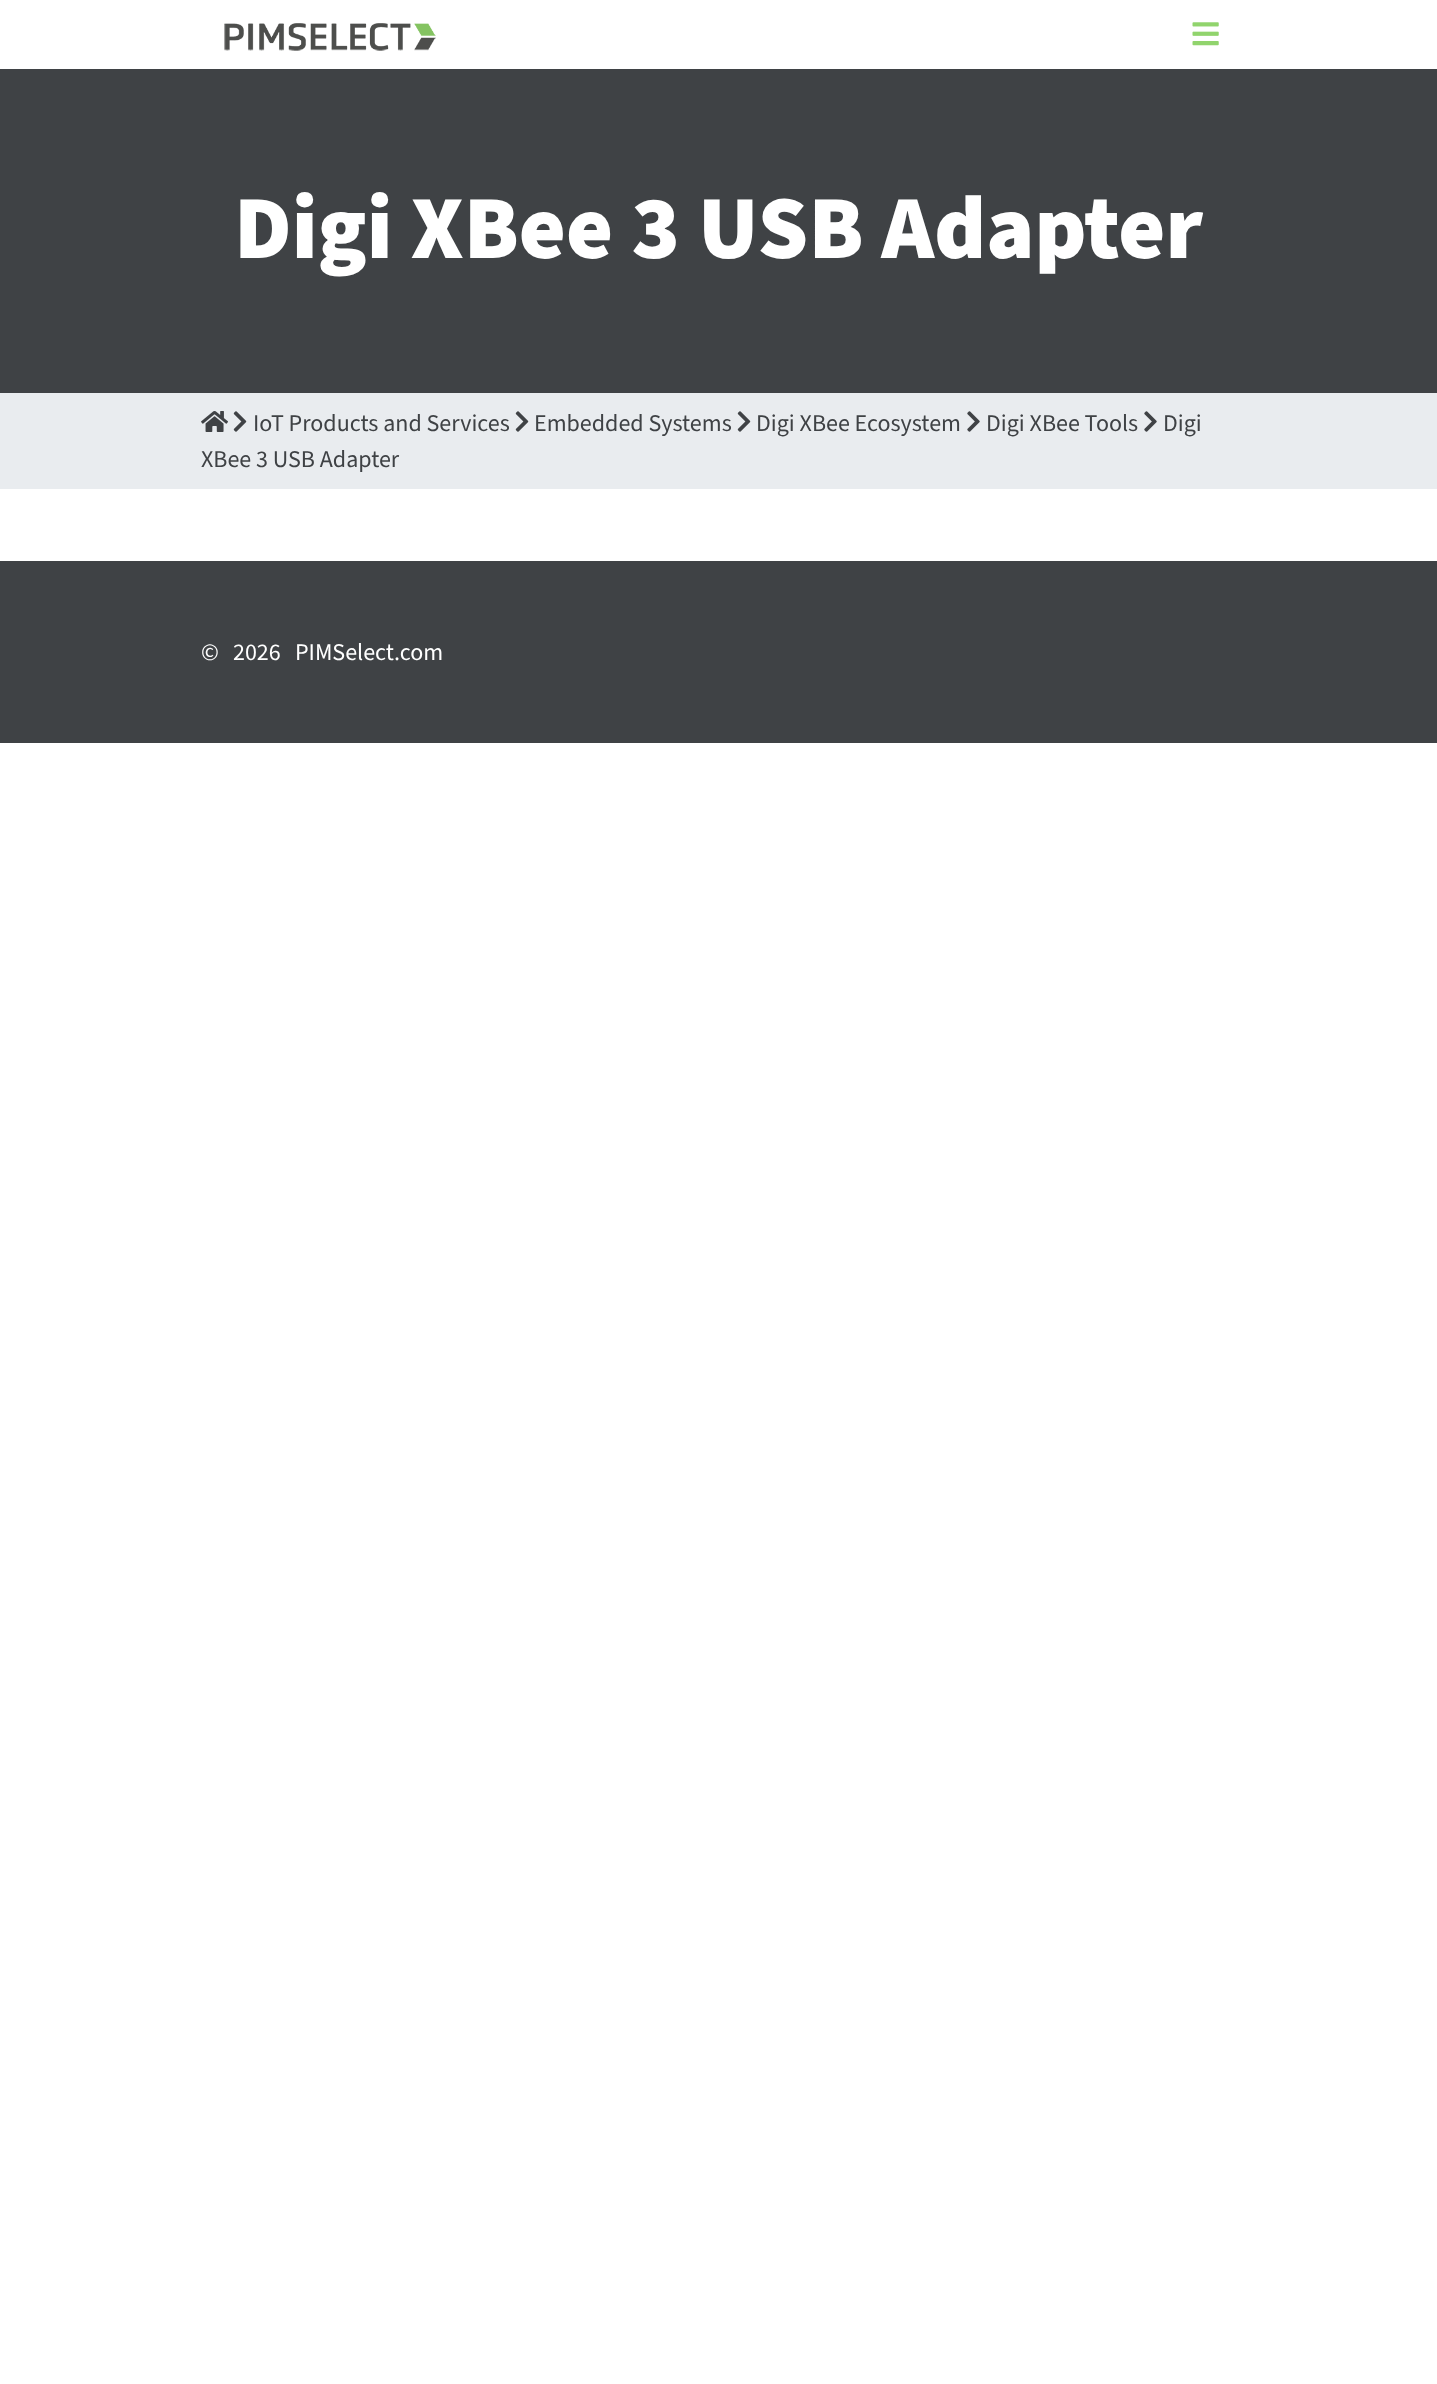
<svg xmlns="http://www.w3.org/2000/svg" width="1437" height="2384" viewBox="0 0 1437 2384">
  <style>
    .t1 { font: 900 90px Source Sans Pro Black; fill: #fff; }
    .t2 { font: 24px Source Sans Pro; fill: #3f4245; }
    .t3 { font: 24px Source Sans Pro; fill: #fff; }
  </style>
  <rect width="100%" height="100%" fill="#fff"/>
  <image x="224" y="23" width="212" height="28" href="images/1.png"/>
  <image x="1192" y="22" width="27" height="24" href="images/2.png"/>
  <rect x="0" y="69" width="1437" height="324" fill="#3f4245"/>
  <text x="234" y="258" class="t1">Digi XBee 3 USB Adapter</text>
  <rect x="0" y="393" width="1437" height="96" fill="#e9ecef"/>
  <image x="201" y="411" width="27" height="21" href="images/3.png"/>
  <image x="233" y="411" width="14" height="21" href="images/4.png"/>
  <text x="253" y="431" class="t2">IoT Products and Services</text>
  <image x="515" y="411" width="14" height="21" href="images/4.png"/>
  <text x="534" y="431" class="t2">Embedded Systems</text>
  <image x="737" y="411" width="14" height="21" href="images/4.png"/>
  <text x="756" y="431" class="t2">Digi XBee Ecosystem</text>
  <image x="967" y="411" width="13" height="21" href="images/5.png"/>
  <text x="986" y="431" class="t2">Digi XBee Tools</text>
  <image x="1144" y="411" width="13" height="21" href="images/5.png"/>
  <text x="1163" y="431" class="t2">Digi</text>
  <text x="201" y="467" class="t2">XBee 3 USB Adapter</text>
  <rect x="0" y="561" width="1437" height="182" fill="#3f4245"/>
  <text x="201" y="660" class="t3">©</text>
  <text x="233" y="660" class="t3">2026</text>
  <text x="295" y="660" class="t3">PIMSelect.com</text>
</svg>
